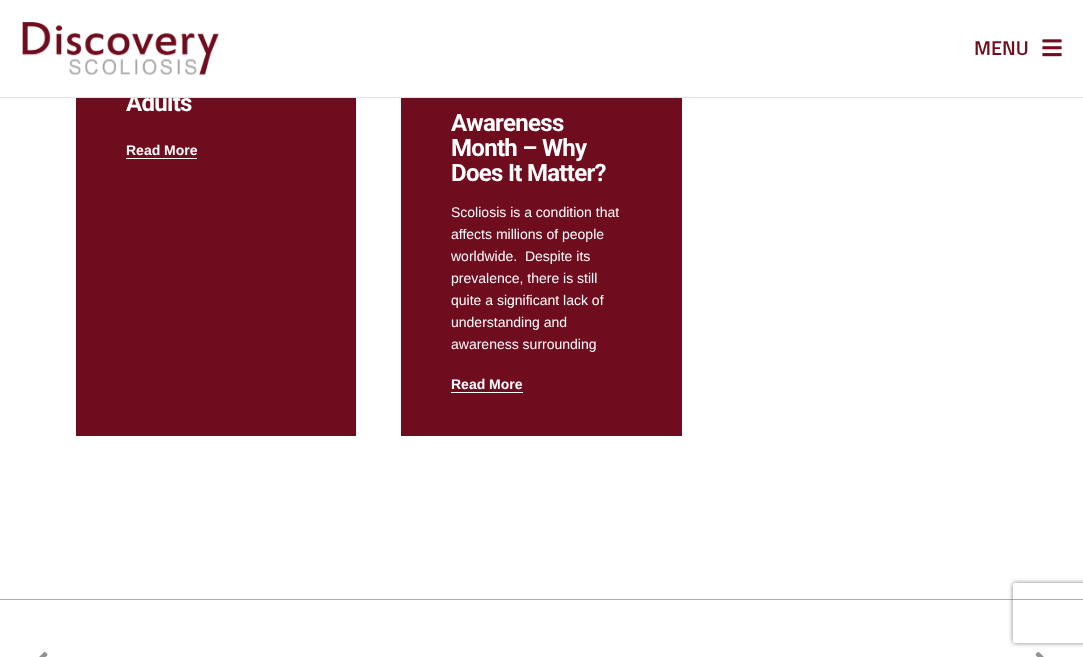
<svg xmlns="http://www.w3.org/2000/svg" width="1083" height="657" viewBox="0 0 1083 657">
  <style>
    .t1 { font: bold 24px Roboto; letter-spacing: -0.7px; fill: #fff; }
    .t2 { font: 600 20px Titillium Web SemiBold; fill: #6f0c1e; }
    .t3 { font: bold 14px Liberation Sans; fill: #fff; }
    .t4 { font: 14px Liberation Sans; fill: #fff; }
  </style>
  <defs>
    <clipPath id="clip1"><path d="M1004 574H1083V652H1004ZM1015 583H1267C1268 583 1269 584 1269 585V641C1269 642 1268 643 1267 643H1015C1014 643 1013 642 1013 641V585C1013 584 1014 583 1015 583Z" clip-rule="evenodd"/></clipPath>
  </defs>
  <rect width="100%" height="100%" fill="#fff"/>
  <rect x="76" y="98" width="280" height="338" fill="#6f0c1e"/>
  <text x="126" y="111" class="t1">Adults</text>
  <rect x="0" y="97" width="1083" height="1" fill="#e2e2e2"/>
  <image x="22" y="22" width="197" height="54" href="images/1.png"/>
  <text x="974" y="55" class="t2">MENU</text>
  <image x="1042" y="39" width="20" height="18" href="images/2.png"/>
  <text x="126" y="155" class="t3">Read More</text>
  <rect x="126" y="158" width="71" height="1" fill="#fff"/>
  <rect x="401" y="98" width="281" height="338" fill="#6f0c1e"/>
  <text x="451" y="131" class="t1">Awareness</text>
  <text x="451" y="156" class="t1">Month – Why</text>
  <text x="451" y="181" class="t1">Does It Matter?</text>
  <text x="451" y="217" class="t4">Scoliosis is a condition that</text>
  <text x="451" y="239" class="t4">affects millions of people</text>
  <text x="451" y="261" class="t4" xml:space="preserve">worldwide.  Despite its</text>
  <text x="451" y="283" class="t4">prevalence, there is still</text>
  <text x="451" y="305" class="t4">quite a significant lack of</text>
  <text x="451" y="327" class="t4">understanding and</text>
  <text x="451" y="349" class="t4">awareness surrounding</text>
  <text x="451" y="389" class="t3">Read More</text>
  <rect x="451" y="392" width="72" height="1" fill="#fff"/>
  <rect x="0" y="599" width="1083" height="1" fill="#aeaeae"/>
  <image x="39" y="652" width="9" height="5" href="images/3.png"/>
  <image x="1035" y="652" width="9" height="5" href="images/4.png"/>
  <g clip-path="url(#clip1)">
    <rect x="1013" y="583" width="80" height="60" rx="2" fill="#808080" filter="blur(2.5px)"/>
  </g>
</svg>
